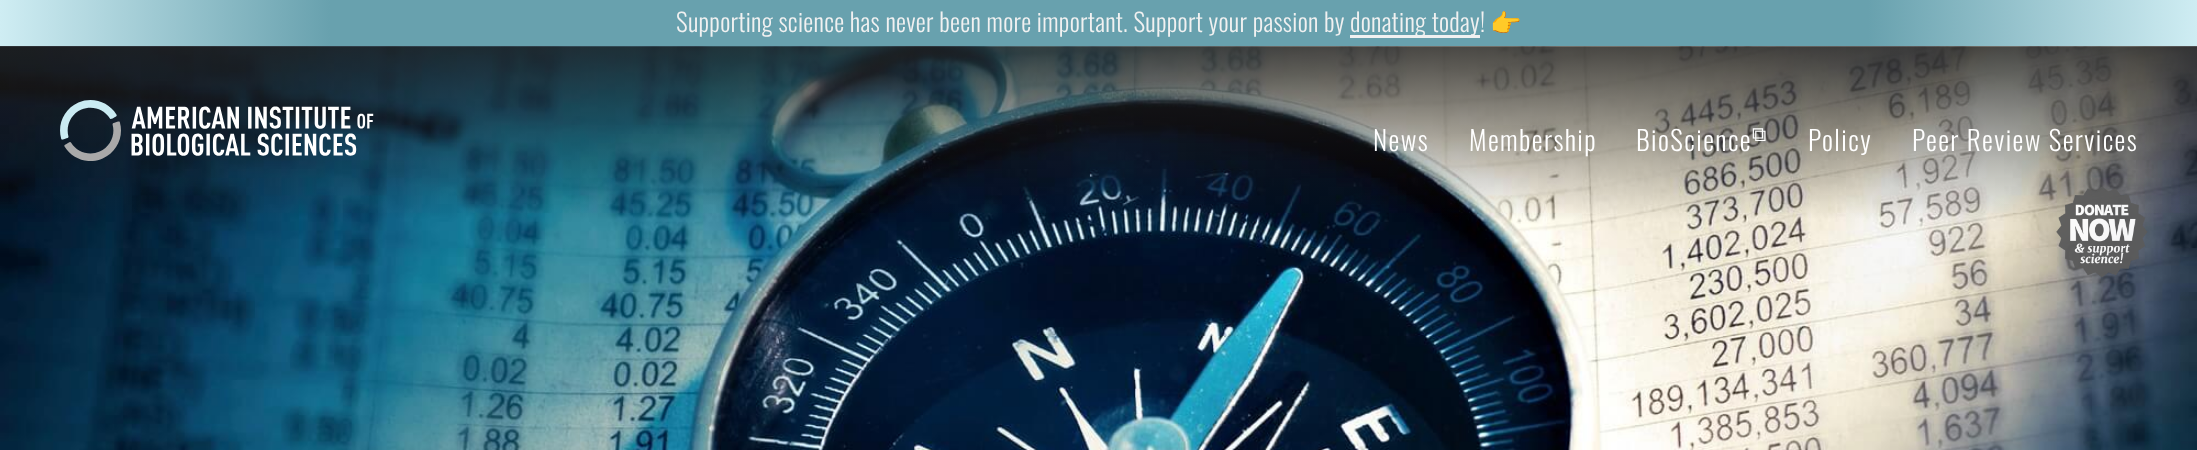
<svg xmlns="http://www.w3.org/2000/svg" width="2197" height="450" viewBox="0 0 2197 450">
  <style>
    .t1 { font: 300 25.2px Oswald; letter-spacing: 0.3px; fill: #f1f1f1; }
    .t2 { font: 25.2px Noto Color Emoji; letter-spacing: 0.3px; fill: #f1f1f1; }
    .t3 { font: 300 27.25px Oswald; letter-spacing: 1.4px; fill: #fff; }
    .t4 { font: 20px FreeSerif; letter-spacing: 1.4px; fill: #fff; }
  </style>
  <defs>
    <radialGradient id="g1" gradientUnits="userSpaceOnUse" cx="1099" cy="23" r="1099"><stop offset="0.7" stop-color="#68a1ae"/><stop offset="1" stop-color="#cfedf3"/></radialGradient>
  </defs>
  <rect width="100%" height="100%" fill="#fff"/>
  <rect x="0" y="0" width="2197" height="46" fill="url(#g1)"/>
  <text x="676" y="32" class="t1">Supporting science has never been more important. Support your passion by</text>
  <rect x="1350" y="35" width="130" height="3" fill="#f1f1f1"/>
  <text x="1350" y="32" class="t1">donating today!</text>
  <text x="1490" y="32" class="t2">👉</text>
  <image x="0" y="46" width="2197" height="404" href="images/1.png"/>
  <image x="60" y="100" width="314" height="61" href="images/2.png"/>
  <text x="1373" y="151" class="t3">News</text>
  <text x="1469" y="151" class="t3">Membership</text>
  <text x="1636" y="151" class="t3">BioScience</text>
  <text x="1752" y="141" class="t4">⧉</text>
  <text x="1808" y="151" class="t3">Policy</text>
  <text x="1912" y="151" class="t3">Peer Review Services</text>
  <image x="2056" y="187" width="92" height="90" href="images/3.png"/>
</svg>
